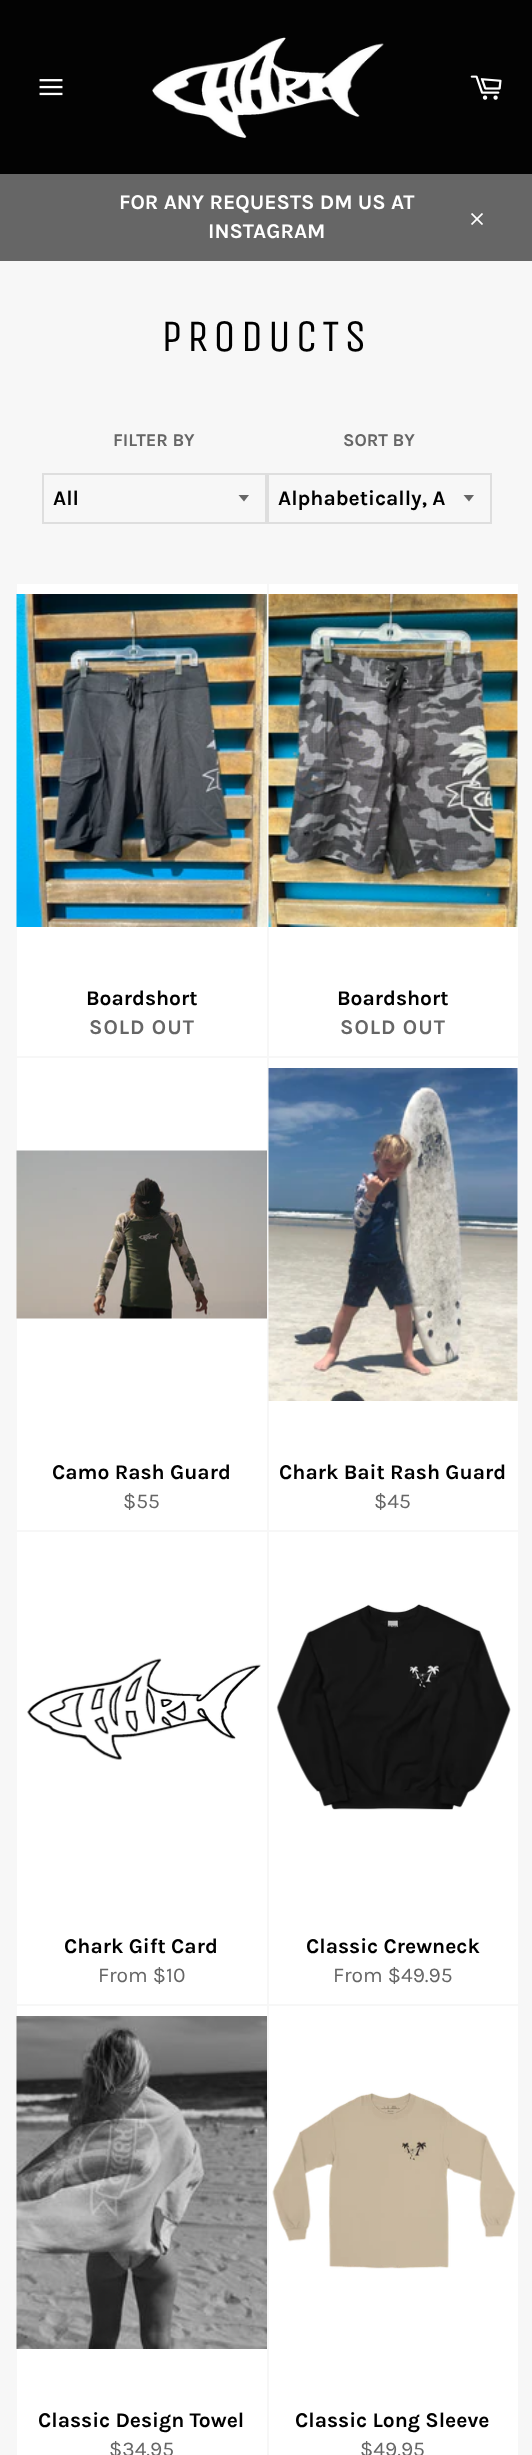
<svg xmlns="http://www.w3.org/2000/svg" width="532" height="2455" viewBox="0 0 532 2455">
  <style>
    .t1 { font: bold 21px Karla; fill: #fff; }
    .t2 { font: 45px Unica One; letter-spacing: 4.5px; fill: #000; }
    .t3 { font: bold 18px Karla; fill: #666; }
    .t4 { font: bold 21px Karla; fill: #000; }
    .t5 { font: bold 21px Karla; letter-spacing: 1px; fill: #666; }
    .t6 { font: 21px Karla; fill: #666; }
  </style>
  <rect width="100%" height="100%" fill="#f7f7f7"/>
  <rect x="0" y="0" width="532" height="174" fill="#030303"/>
  <image x="39" y="79" width="24" height="17" href="images/1.png"/>
  <image x="152" y="37" width="232" height="101" href="images/2.png"/>
  <image x="470" y="75" width="32" height="25" href="images/3.png"/>
  <rect x="0" y="174" width="532" height="87" fill="#666"/>
  <text x="119" y="209" class="t1">FOR ANY REQUESTS DM US AT</text>
  <text x="208" y="238" class="t1">INSTAGRAM</text>
  <image x="471" y="213" width="12" height="12" href="images/4.png"/>
  <text x="161" y="351" class="t2">PRODUCTS</text>
  <text x="113" y="446" class="t3">FILTER BY</text>
  <path d="M238.5 495L244 501.5L249 495Z" fill="#666"/>
  <rect x="43" y="474" width="223" height="49" fill="none" stroke="#dedede" stroke-width="2"/>
  <text x="53" y="505" class="t4">All</text>
  <text x="343" y="446" class="t3">SORT BY</text>
  <path d="M463.5 495L469 501.5L474 495Z" fill="#666"/>
  <rect x="268" y="474" width="223" height="49" fill="none" stroke="#dedede" stroke-width="2"/>
  <text x="278" y="505" class="t4">Alphabetically, A</text>
  <rect x="17" y="584" width="250" height="472" fill="#fff"/>
  <image x="16" y="594" width="251" height="333" href="images/5.png"/>
  <text x="86" y="1005" class="t4">Boardshort</text>
  <text x="89" y="1034" class="t5">SOLD OUT</text>
  <rect x="269" y="584" width="249" height="472" fill="#fff"/>
  <image x="268" y="594" width="250" height="333" href="images/6.png"/>
  <text x="337" y="1005" class="t4">Boardshort</text>
  <text x="340" y="1034" class="t5">SOLD OUT</text>
  <rect x="17" y="1058" width="250" height="472" fill="#fff"/>
  <image x="16" y="1150" width="251" height="169" href="images/7.png"/>
  <text x="52" y="1479" class="t4">Camo Rash Guard</text>
  <text x="123" y="1508" class="t6">$55</text>
  <rect x="269" y="1058" width="249" height="472" fill="#fff"/>
  <image x="268" y="1068" width="250" height="333" href="images/8.png"/>
  <text x="279" y="1479" class="t4">Chark Bait Rash Guard</text>
  <text x="374" y="1508" class="t6">$45</text>
  <rect x="17" y="1532" width="250" height="472" fill="#fff"/>
  <image x="27" y="1658" width="234" height="102" href="images/9.png"/>
  <text x="64" y="1953" class="t4">Chark Gift Card</text>
  <text x="98" y="1982" class="t6">From $10</text>
  <rect x="269" y="1532" width="249" height="472" fill="#fff"/>
  <image x="276" y="1604" width="235" height="206" href="images/10.png"/>
  <text x="306" y="1953" class="t4">Classic Crewneck</text>
  <text x="333" y="1982" class="t6">From $49.95</text>
  <rect x="17" y="2006" width="250" height="449" fill="#fff"/>
  <image x="16" y="2016" width="251" height="333" href="images/11.png"/>
  <text x="38" y="2427" class="t4">Classic Design Towel</text>
  <text x="109" y="2456" class="t6">$34.95</text>
  <rect x="269" y="2006" width="249" height="449" fill="#fff"/>
  <image x="272" y="2092" width="244" height="177" href="images/12.png"/>
  <text x="295" y="2427" class="t4">Classic Long Sleeve</text>
  <text x="360" y="2456" class="t6">$49.95</text>
</svg>
